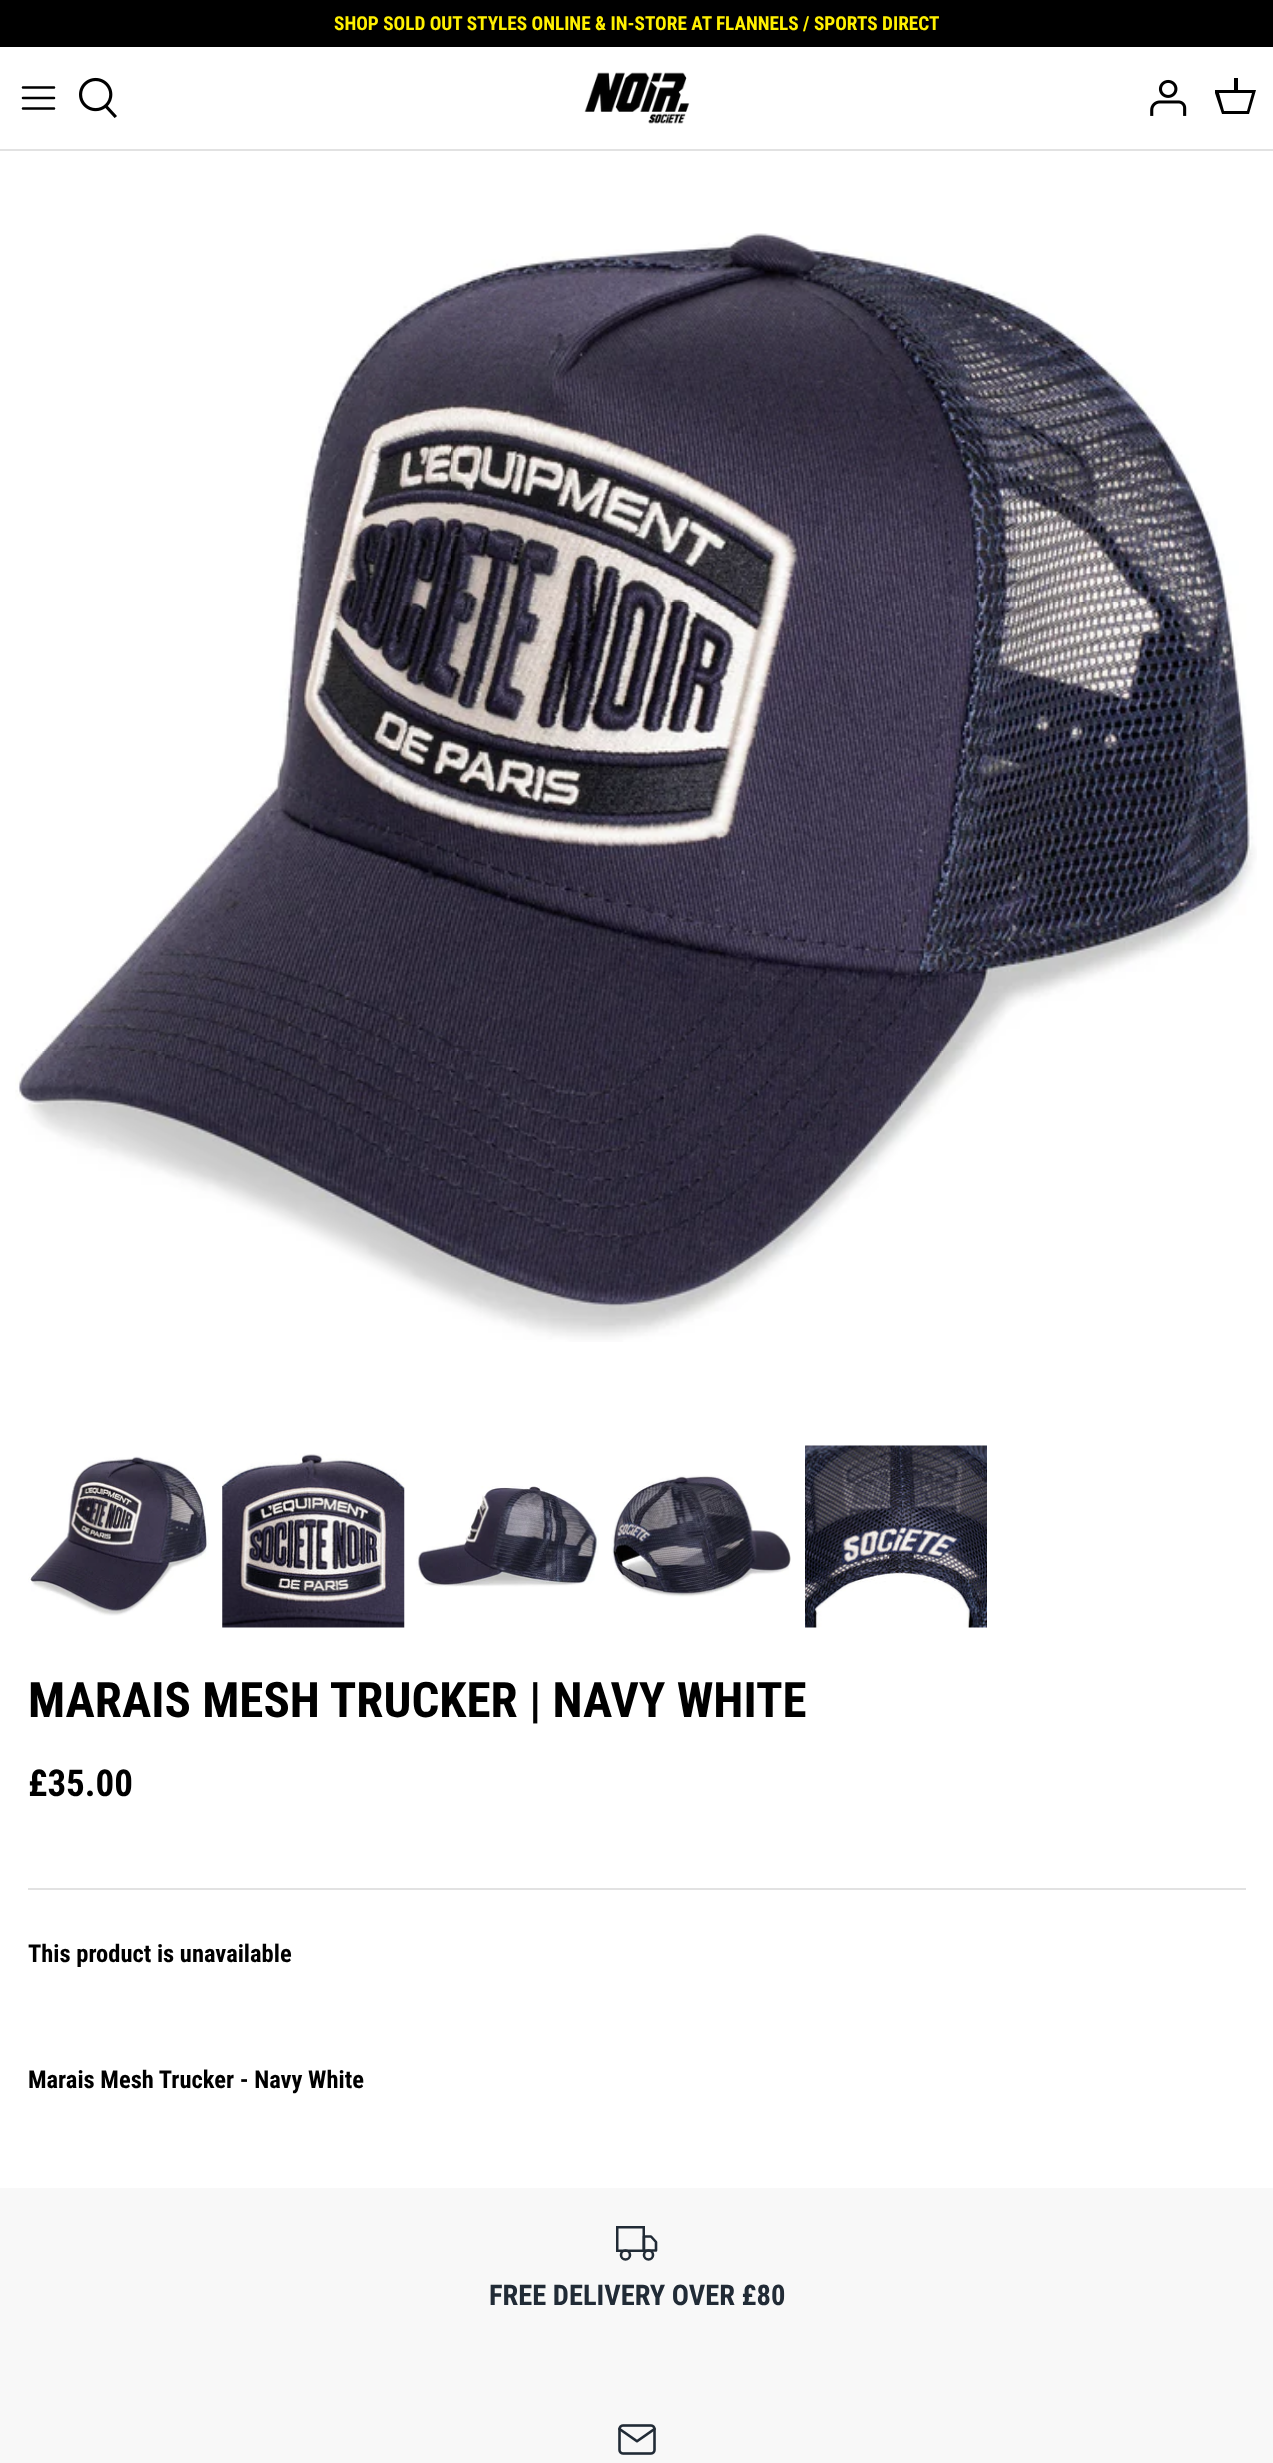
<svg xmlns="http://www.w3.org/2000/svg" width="1273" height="2463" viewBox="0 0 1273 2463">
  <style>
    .t1 { font: bold 19.25px Roboto Condensed; fill: #fff000; }
    .t2 { font: bold 49px Roboto Condensed; fill: #000; }
    .t3 { font: bold 37px Roboto Condensed; fill: #000; }
    .t4 { font: bold 24.5px Roboto Condensed; fill: #000; }
    .t5 { font: bold 28.5px Roboto Condensed; fill: #212b36; }
  </style>
  <defs>
    <clipPath id="clip1"><rect x="1215" y="75" width="42" height="42"/></clipPath>
  </defs>
  <rect width="100%" height="100%" fill="#fff"/>
  <rect x="0" y="0" width="1273" height="47" fill="#000"/>
  <text x="334" y="30" class="t1">SHOP SOLD OUT STYLES ONLINE &amp; IN-STORE AT FLANNELS / SPORTS DIRECT</text>
  <rect x="0" y="149" width="1273" height="2" fill="#e2e2e2"/>
  <path d="M23 98H54M23 87.5H54M23 108.5H54" fill="none" stroke="#000" stroke-width="2.6" stroke-linecap="round" stroke-linejoin="round"/>
  <image x="79" y="77" width="38" height="41" href="images/1.png"/>
  <image x="584" y="72" width="106" height="52" href="images/2.png"/>
  <image x="1150" y="79" width="37" height="37" href="images/3.png"/>
  <g clip-path="url(#clip1)">
    <path d="M1234 90V78H1238V90H1256L1249 114H1222L1214 90ZM1219 93L1224 111H1247L1252 93Z" fill="#000"/>
  </g>
  <image x="15" y="233" width="1242" height="1109" href="images/4.png"/>
  <image x="28" y="1456" width="181" height="160" href="images/5.png"/>
  <image x="222" y="1453" width="183" height="175" href="images/6.png"/>
  <image x="416" y="1486" width="183" height="101" href="images/7.png"/>
  <image x="611" y="1475" width="180" height="122" href="images/8.png"/>
  <image x="805" y="1445" width="182" height="183" href="images/9.png"/>
  <text x="28" y="1717" class="t2">MARAIS MESH TRUCKER | NAVY WHITE</text>
  <text x="28" y="1796" class="t3">£35.00</text>
  <rect x="28" y="1888" width="1218" height="2" fill="#e2e2e2"/>
  <text x="28" y="1962" class="t4">This product is unavailable</text>
  <text x="28" y="2088" class="t4">Marais Mesh Trucker - Navy White</text>
  <rect x="0" y="2188" width="1273" height="275" fill="#f8f8f8"/>
  <rect x="617.25" y="2227.25" width="26.5" height="23.5" fill="none" stroke="#212b36" stroke-width="2.5"/>
  <path d="M644 2236.5H651L656 2242V2250.5H644Z" fill="none" stroke="#212b36" stroke-width="2.6" stroke-linecap="round" stroke-linejoin="round"/>
  <circle cx="625.5" cy="2255" r="4.5" fill="none" stroke="#212b36" stroke-width="2.6"/>
  <circle cx="648.5" cy="2255" r="4.5" fill="none" stroke="#212b36" stroke-width="2.6"/>
  <text x="489" y="2305" class="t5">FREE DELIVERY OVER £80</text>
  <image x="618" y="2424" width="38" height="31" href="images/10.png"/>
</svg>
